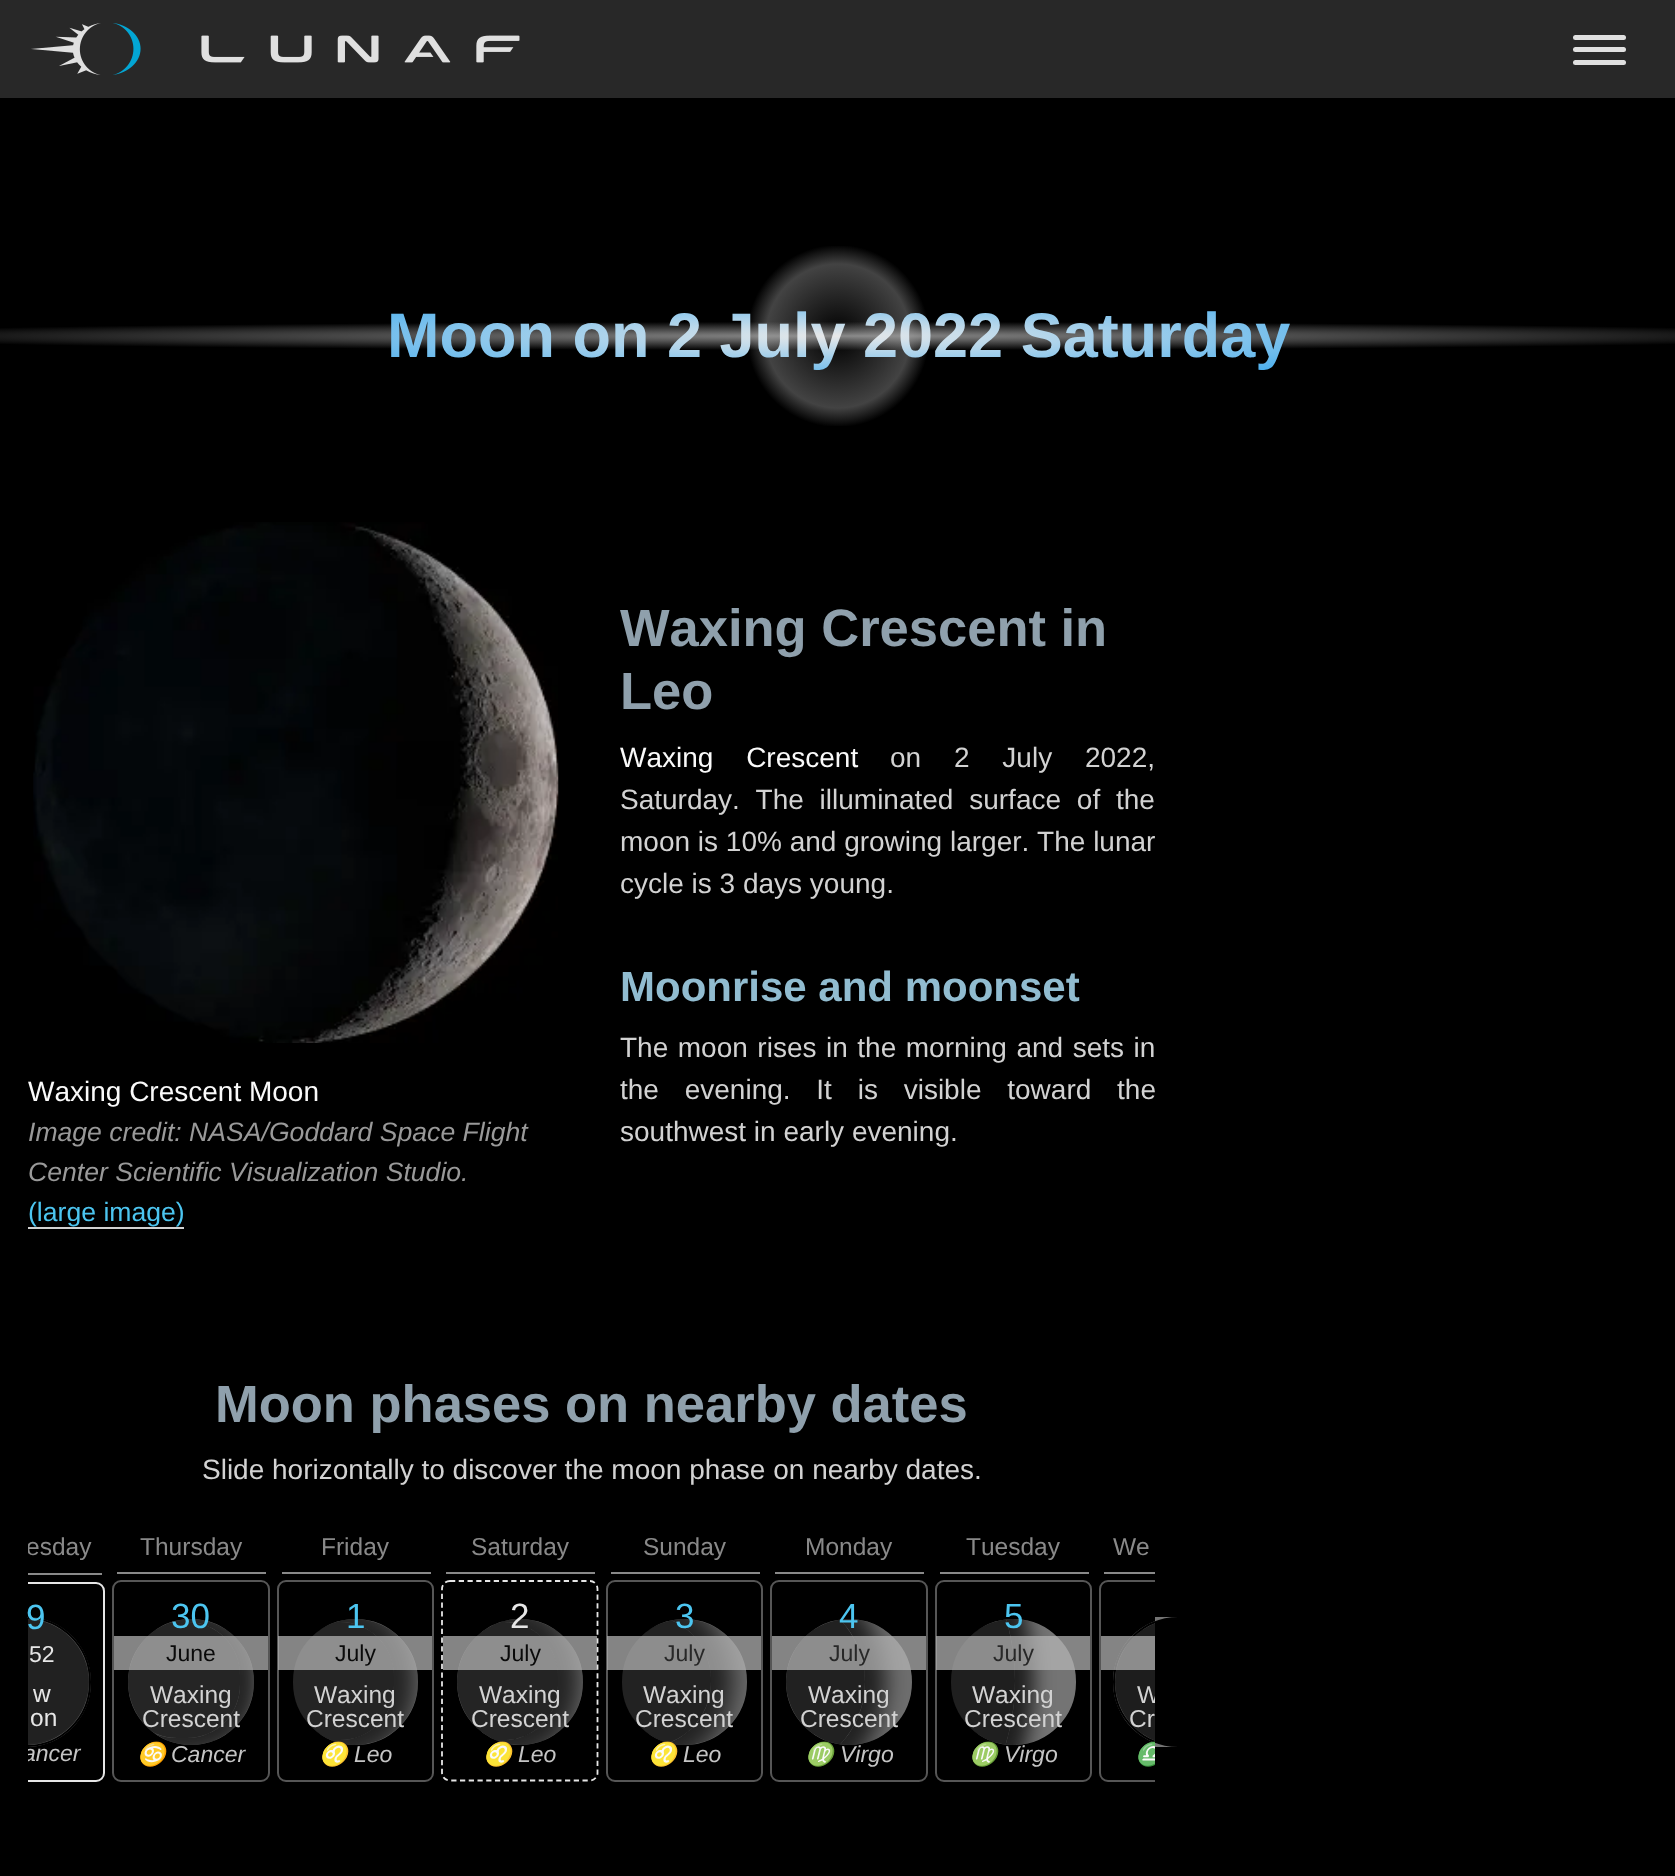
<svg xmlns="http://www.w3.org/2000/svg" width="1675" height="1876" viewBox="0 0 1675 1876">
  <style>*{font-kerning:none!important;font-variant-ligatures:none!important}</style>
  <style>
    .t1 { font: bold 63px Liberation Sans; fill: url(#g1); }
    .t2 { font: 28px Liberation Sans; fill: #fafafa; }
    .t3 { font: italic 26.6px Liberation Sans; fill: #999; }
    .t4 { font: 26.6px Liberation Sans; fill: #4cc5f0; }
    .t5 { font: bold 52.5px Liberation Sans; fill: #8fa0ac; }
    .t6 { font: 28px Liberation Sans; fill: #d2d2d2; }
    .t7 { font: bold 42px Liberation Sans; fill: #91bcd0; }
    .t8 { font: 24.5px Liberation Sans; fill: #898989; }
    .t9 { font: 35px Liberation Sans; fill: #4cc5f0; }
    .t10 { font: 23px Liberation Sans; fill: #e6e6e6; }
    .t11 { font: 24.5px Liberation Sans; fill: #e6e6e6; }
    .t12 { font: italic 23px Liberation Sans; fill: #c5c5c5; }
    .t13 { font: 23px Liberation Sans; fill: #0a0a0a; }
    .t14 { font: 24.5px Liberation Sans; fill: #d2d2d2; }
    .t15 { font: italic 23px Noto Color Emoji; fill: #c5c5c5; }
    .t16 { font: 35px Liberation Sans; fill: #e6e6e6; }
    .t17 { font: 23px Liberation Sans; fill: #282828; }
  </style>
  <defs>
    <radialGradient id="g1" gradientUnits="userSpaceOnUse" cx="0" cy="0" r="1" gradientTransform="matrix(639 0 0 50 838 336)"><stop offset="0" stop-color="#e9e9e9"/><stop offset="1" stop-color="#45adee"/></radialGradient>
    <radialGradient id="g2" gradientUnits="userSpaceOnUse" cx="838" cy="336" r="96"><stop offset="0" stop-color="#000"/><stop offset="0.75" stop-color="#434343"/><stop offset="0.95" stop-color="#000"/></radialGradient>
    <radialGradient id="g3" gradientUnits="userSpaceOnUse" cx="0" cy="0" r="1" gradientTransform="matrix(1090 0 0 15 838 336)"><stop offset="0" stop-color="#aaa" stop-opacity="0.8"/><stop offset="0.95" stop-color="#aaa" stop-opacity="0"/></radialGradient>
    <clipPath id="clip1"><rect x="28" y="1533" width="1127" height="277"/></clipPath>
    <clipPath id="clip2"><rect x="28" y="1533" width="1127" height="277"/></clipPath>
    <clipPath id="clip3"><rect x="-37" y="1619" width="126" height="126" rx="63"/></clipPath>
    <clipPath id="clip4"><rect x="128" y="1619" width="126" height="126" rx="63"/></clipPath>
    <clipPath id="clip5"><path d="M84 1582H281V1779H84ZM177 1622H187C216.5 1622 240 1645.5 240 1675V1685C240 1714.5 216.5 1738 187 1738H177C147.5 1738 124 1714.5 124 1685V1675C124 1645.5 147.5 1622 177 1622Z" clip-rule="evenodd"/></clipPath>
    <clipPath id="clip6"><rect x="128" y="1619" width="126" height="126" rx="63"/></clipPath>
    <clipPath id="clip7"><rect x="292" y="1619" width="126" height="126" rx="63"/></clipPath>
    <clipPath id="clip8"><path d="M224 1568H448V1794H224ZM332 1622H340C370 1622 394 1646 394 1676V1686C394 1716 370 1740 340 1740H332C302 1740 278 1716 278 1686V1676C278 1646 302 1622 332 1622Z" clip-rule="evenodd"/></clipPath>
    <clipPath id="clip9"><rect x="292" y="1619" width="126" height="126" rx="63"/></clipPath>
    <clipPath id="clip10"><rect x="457" y="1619" width="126" height="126" rx="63"/></clipPath>
    <clipPath id="clip11"><path d="M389 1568H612V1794H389ZM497 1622H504C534 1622 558 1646 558 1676V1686C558 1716 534 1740 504 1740H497C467 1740 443 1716 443 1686V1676C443 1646 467 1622 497 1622Z" clip-rule="evenodd"/></clipPath>
    <clipPath id="clip12"><rect x="457" y="1619" width="126" height="126" rx="63"/></clipPath>
    <clipPath id="clip13"><rect x="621" y="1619" width="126" height="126" rx="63"/></clipPath>
    <clipPath id="clip14"><path d="M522 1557H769V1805H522ZM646 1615C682 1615 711 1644 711 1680V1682C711 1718 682 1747 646 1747C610 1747 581 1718 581 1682V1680C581 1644 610 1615 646 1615Z" clip-rule="evenodd"/></clipPath>
    <clipPath id="clip15"><rect x="621" y="1619" width="126" height="126" rx="63"/></clipPath>
    <clipPath id="clip16"><rect x="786" y="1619" width="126" height="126" rx="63"/></clipPath>
    <clipPath id="clip17"><path d="M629 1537H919V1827H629ZM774 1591C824.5 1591 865 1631.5 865 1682C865 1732.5 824.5 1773 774 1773C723.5 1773 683 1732.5 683 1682C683 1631.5 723.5 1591 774 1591Z" clip-rule="evenodd"/></clipPath>
    <clipPath id="clip18"><rect x="786" y="1619" width="126" height="126" rx="63"/></clipPath>
    <clipPath id="clip19"><rect x="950" y="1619" width="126" height="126" rx="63"/></clipPath>
    <clipPath id="clip20"><path d="M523 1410H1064V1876H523ZM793 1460H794C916 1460 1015 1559 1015 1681C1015 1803 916 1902 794 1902H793C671 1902 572 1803 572 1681C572 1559 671 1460 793 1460Z" clip-rule="evenodd"/></clipPath>
    <clipPath id="clip21"><rect x="950" y="1619" width="126" height="126" rx="63"/></clipPath>
    <clipPath id="clip22"><rect x="1115" y="1619" width="126" height="126" rx="63"/></clipPath>
  </defs>
  <rect width="100%" height="100%" fill="#000"/>
  <rect x="0" y="0" width="1675" height="98" fill="#282828"/>
  <image x="31" y="23" width="489" height="52" href="images/1.png"/>
  <rect x="1573" y="35" width="53" height="5" rx="2.5" fill="#e0e0e0"/>
  <rect x="1573" y="47" width="53" height="5" rx="2.5" fill="#e0e0e0"/>
  <rect x="1573" y="60" width="53" height="5" rx="2.5" fill="#e0e0e0"/>
  <rect x="748" y="246" width="180" height="180" fill="url(#g2)"/>
  <rect x="0" y="322" width="1675" height="28" fill="url(#g3)"/>
  <text x="387" y="357" class="t1">Moon on 2 July 2022 Saturday</text>
  <image x="33" y="522" width="526" height="521" href="images/2.png"/>
  <text x="28" y="1101" class="t2">Waxing Crescent Moon</text>
  <text x="28" y="1141" class="t3">Image credit: NASA/Goddard Space Flight</text>
  <text x="28" y="1181" class="t3">Center Scientific Visualization Studio.</text>
  <text x="28" y="1221" class="t4">(large image)</text>
  <rect x="28" y="1227" width="156" height="2" fill="#d2d2d2"/>
  <text x="620" y="646" class="t5">Waxing Crescent in</text>
  <text x="620" y="709" class="t5">Leo</text>
  <text x="620" y="767" word-spacing="25" class="t2">Waxing Crescent</text>
  <text x="890" y="767" class="t6">on</text>
  <text x="954" y="767" word-spacing="25" class="t6">2 July 2022,</text>
  <text x="620" y="809" class="t6">Saturday</text>
  <text x="732" y="809" word-spacing="8" class="t6">. The illuminated surface of the</text>
  <text x="620" y="851" class="t6">moon is 10% and growing larger. The lunar</text>
  <text x="620" y="893" class="t6">cycle is 3 days young.</text>
  <text x="620" y="1001" class="t7">Moonrise and moonset</text>
  <text x="620" y="1057" word-spacing="1.75" class="t6">The moon rises in the morning and sets in</text>
  <text x="620" y="1099" word-spacing="18" class="t6">the evening. It is visible toward the</text>
  <text x="620" y="1141" class="t6">southwest in early evening.</text>
  <text x="215" y="1422" class="t5">Moon phases on nearby dates</text>
  <text x="202" y="1479" class="t6">Slide horizontally to discover the moon phase on nearby dates.</text>
  <rect x="28" y="1573" width="74" height="2" fill="#898989"/>
  <g clip-path="url(#clip1)">
    <text x="26" y="1555" class="t8">esday</text>
  </g>
  <path d="M28 1617H26.5C62 1617 91 1646 91 1681.5V1682.5C91 1718 62 1747 26.5 1747H28Z" fill="#6a6a6a"/>
  <g clip-path="url(#clip1)">
    <rect x="-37" y="1618" width="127" height="128" rx="63.5" fill="none" stroke="#000" stroke-width="2"/>
  </g>
  <g clip-path="url(#clip2)">
    <g clip-path="url(#clip3)">
      <rect x="-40" y="1615" width="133" height="133" rx="65" fill="#000000b0" filter="blur(2.5px)"/>
    </g>
  </g>
  <circle cx="191" cy="1682" r="64" fill="#6a6a6a" stroke="#000" stroke-width="2"/>
  <g clip-path="url(#clip4)">
    <g clip-path="url(#clip5)">
      <rect x="109" y="1607" width="147" height="147" rx="68" fill="#000000a6" filter="blur(8px)"/>
    </g>
  </g>
  <rect x="117" y="1572" width="149" height="2" fill="#898989"/>
  <text x="140" y="1555" class="t8">Thursday</text>
  <g clip-path="url(#clip6)">
    <rect x="124" y="1622" width="116" height="116" rx="53" fill="#000000a6"/>
  </g>
  <rect x="282" y="1572" width="149" height="2" fill="#898989"/>
  <text x="321" y="1555" class="t8">Friday</text>
  <rect x="292" y="1618" width="127" height="128" rx="63.5" fill="#6a6a6a" stroke="#000" stroke-width="2"/>
  <rect x="446" y="1572" width="149" height="2" fill="#898989"/>
  <g clip-path="url(#clip7)">
    <g clip-path="url(#clip8)">
      <rect x="257" y="1601" width="158" height="160" rx="75" fill="#000000a8" filter="blur(10.5px)"/>
    </g>
  </g>
  <g clip-path="url(#clip9)">
    <rect x="278" y="1622" width="116" height="118" rx="54" fill="#000000a8"/>
  </g>
  <text x="471" y="1555" class="t8">Saturday</text>
  <circle cx="520" cy="1682" r="64" fill="#6a6a6a" stroke="#000" stroke-width="2"/>
  <rect x="611" y="1572" width="149" height="2" fill="#898989"/>
  <g clip-path="url(#clip10)">
    <g clip-path="url(#clip11)">
      <rect x="422" y="1601" width="157" height="160" rx="75" fill="#000000a8" filter="blur(10.5px)"/>
    </g>
  </g>
  <g clip-path="url(#clip12)">
    <rect x="443" y="1622" width="115" height="118" rx="54" fill="#000000a8"/>
  </g>
  <text x="643" y="1555" class="t8">Sunday</text>
  <rect x="621" y="1618" width="127" height="128" rx="63.5" fill="#6a6a6a" stroke="#000" stroke-width="2"/>
  <g clip-path="url(#clip13)">
    <g clip-path="url(#clip14)">
      <rect x="558" y="1593" width="175" height="176" rx="87.5" fill="#000000ad" filter="blur(11.5px)"/>
    </g>
  </g>
  <g clip-path="url(#clip15)">
    <rect x="581" y="1615" width="130" height="132" rx="65" fill="#000000ad"/>
  </g>
  <circle cx="849" cy="1682" r="64" fill="#6e6e6e" stroke="#000" stroke-width="2"/>
  <rect x="775" y="1572" width="149" height="2" fill="#898989"/>
  <g clip-path="url(#clip16)">
    <g clip-path="url(#clip17)">
      <rect x="662" y="1570" width="224" height="224" rx="112" fill="#000000b3" filter="blur(10.5px)"/>
    </g>
  </g>
  <g clip-path="url(#clip18)">
    <circle cx="774" cy="1682" r="91" fill="#000000b3"/>
  </g>
  <text x="805" y="1555" class="t8">Monday</text>
  <rect x="950" y="1618" width="127" height="128" rx="63.5" fill="#747474" stroke="#000" stroke-width="2"/>
  <rect x="940" y="1572" width="149" height="2" fill="#898989"/>
  <g clip-path="url(#clip19)">
    <g clip-path="url(#clip20)">
      <rect x="553" y="1440" width="481" height="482" rx="240.5" fill="#000000ba" filter="blur(9.5px)"/>
    </g>
  </g>
  <text x="966" y="1555" class="t8">Tuesday</text>
  <g clip-path="url(#clip21)">
    <rect x="572" y="1460" width="443" height="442" rx="221" fill="#000000ba"/>
  </g>
  <path d="M1178 1617H1155V1747H1178C1142 1747 1113 1718 1113 1682C1113 1646 1142 1617 1178 1617Z" fill="#747474"/>
  <g clip-path="url(#clip1)">
    <circle cx="1178" cy="1682" r="64" fill="none" stroke="#000" stroke-width="2"/>
  </g>
  <rect x="1104" y="1572" width="51" height="2" fill="#898989"/>
  <text x="1113" y="1555" class="t8">We</text>
  <g clip-path="url(#clip1)">
    <g clip-path="url(#clip22)">
      <rect x="-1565" y="116" width="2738" height="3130" rx="1564.5" fill="#000000bf"/>
    </g>
  </g>
  <g clip-path="url(#clip1)">
    <rect x="-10" y="1583" width="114" height="198" rx="8" fill="none" stroke="#e6e6e6" stroke-width="2"/>
  </g>
  <text x="26" y="1629" class="t9">9</text>
  <text x="29" y="1662" class="t10">52</text>
  <text x="33" y="1702" class="t11">w</text>
  <text x="30" y="1726" class="t11">on</text>
  <g clip-path="url(#clip1)">
    <text x="23" y="1761" class="t12">ancer</text>
  </g>
  <rect x="113" y="1581" width="156" height="200" rx="8" fill="none" stroke="#565656" stroke-width="2"/>
  <text x="171" y="1628" class="t9">30</text>
  <rect x="114" y="1636" width="154" height="34" fill="#b7b7b7b8"/>
  <text x="166" y="1661" class="t13">June</text>
  <text x="150" y="1703" class="t14">Waxing</text>
  <text x="142" y="1727" class="t14">Crescent</text>
  <text x="137" y="1762" class="t15">♋</text>
  <text x="171" y="1762" class="t12">Cancer</text>
  <rect x="278" y="1581" width="155" height="200" rx="8" fill="none" stroke="#565656" stroke-width="2"/>
  <text x="346" y="1628" class="t9">1</text>
  <rect x="278" y="1636" width="154" height="34" fill="#b7b7b7b8"/>
  <text x="335" y="1661" class="t13">July</text>
  <text x="314" y="1703" class="t14">Waxing</text>
  <text x="306" y="1727" class="t14">Crescent</text>
  <text x="319" y="1762" class="t15">♌</text>
  <text x="354" y="1762" class="t12">Leo</text>
  <path d="M450 1581H590C594 1581 597.5 1584.5 597.5 1589V1773C597.5 1777 594 1780.5 590 1780.5H450C445.5 1780.5 442 1777 442 1773V1589C442 1584.5 445.5 1581 450 1581Z" fill="none" stroke="#e6e6e6" stroke-width="1.8" stroke-dasharray="5.25 3.5"/>
  <text x="510" y="1628" class="t16">2</text>
  <rect x="443" y="1636" width="154" height="34" fill="#b7b7b7b8"/>
  <text x="500" y="1661" class="t13">July</text>
  <text x="479" y="1703" class="t14">Waxing</text>
  <text x="471" y="1727" class="t14">Crescent</text>
  <text x="483" y="1762" class="t15">♌</text>
  <text x="518" y="1762" class="t12">Leo</text>
  <rect x="607" y="1581" width="155" height="200" rx="8" fill="none" stroke="#565656" stroke-width="2"/>
  <text x="675" y="1628" class="t9">3</text>
  <rect x="607" y="1636" width="154" height="34" fill="#b7b7b7b8"/>
  <text x="664" y="1661" class="t17">July</text>
  <text x="643" y="1703" class="t14">Waxing</text>
  <text x="635" y="1727" class="t14">Crescent</text>
  <text x="648" y="1762" class="t15">♌</text>
  <text x="683" y="1762" class="t12">Leo</text>
  <rect x="771" y="1581" width="156" height="200" rx="8" fill="none" stroke="#565656" stroke-width="2"/>
  <text x="839" y="1628" class="t9">4</text>
  <rect x="772" y="1636" width="154" height="34" fill="#b7b7b7b8"/>
  <text x="829" y="1661" class="t17">July</text>
  <text x="808" y="1703" class="t14">Waxing</text>
  <text x="800" y="1727" class="t14">Crescent</text>
  <text x="805" y="1762" class="t15">♍</text>
  <text x="840" y="1762" class="t12">Virgo</text>
  <rect x="936" y="1581" width="155" height="200" rx="8" fill="none" stroke="#565656" stroke-width="2"/>
  <text x="1004" y="1628" class="t9">5</text>
  <rect x="936" y="1636" width="154" height="34" fill="#b7b7b7b8"/>
  <text x="993" y="1661" class="t17">July</text>
  <text x="972" y="1703" class="t14">Waxing</text>
  <text x="964" y="1727" class="t14">Crescent</text>
  <text x="969" y="1762" class="t15">♍</text>
  <text x="1004" y="1762" class="t12">Virgo</text>
  <g clip-path="url(#clip1)">
    <rect x="1100" y="1581" width="156" height="200" rx="8" fill="none" stroke="#565656" stroke-width="2"/>
  </g>
  <rect x="1101" y="1636" width="54" height="34" fill="#b7b7b7b8"/>
  <g clip-path="url(#clip1)">
    <text x="1137" y="1703" class="t14">W</text>
  </g>
  <text x="1129" y="1727" class="t14">Cr</text>
  <g clip-path="url(#clip1)">
    <text x="1135" y="1762" class="t15">♎</text>
  </g>
</svg>
